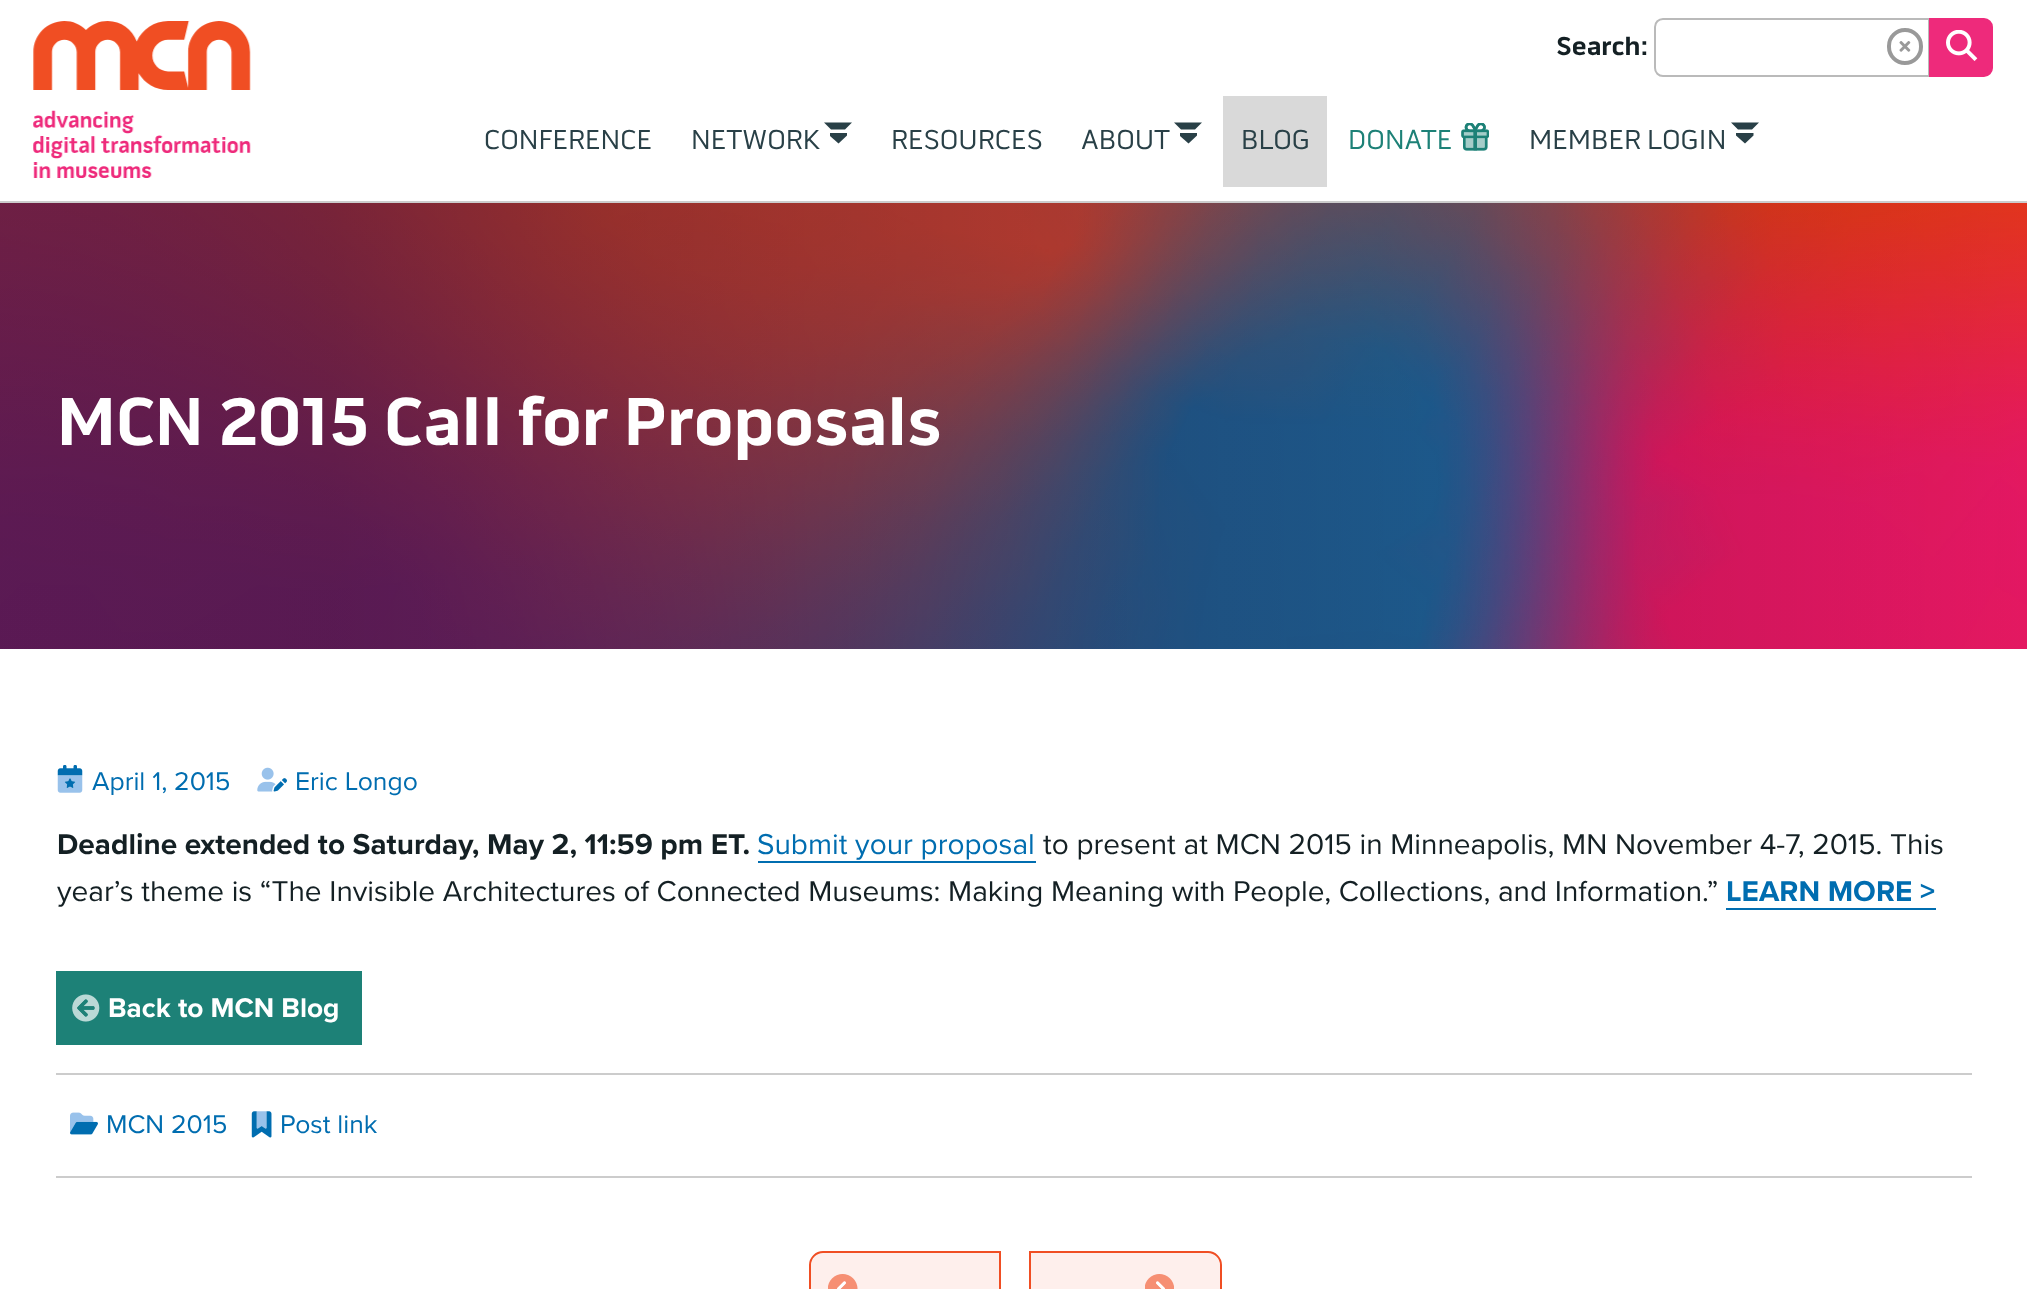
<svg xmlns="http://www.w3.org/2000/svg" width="2027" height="1289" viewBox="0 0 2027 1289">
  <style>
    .t1 { font: bold 26.5px 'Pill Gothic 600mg'; fill: #142024; }
    .t2 { font: 28px 'Pill Gothic 600mg'; fill: #294047; }
    .t3 { font: 28px 'Pill Gothic 600mg'; fill: #1d8177; }
    .t4 { font: bold 69.25px 'Pill Gothic 600mg'; fill: #fff; }
    .t5 { font: 26.5px Proxima Nova; fill: #006db0; }
    .t6 { font: bold 29.75px Proxima Nova; fill: #142024; }
    .t7 { font: 29.75px Proxima Nova; fill: #006db0; }
    .t8 { font: 29.75px Proxima Nova; fill: #142024; }
    .t9 { font: bold 29.75px Proxima Nova; fill: #006db0; }
    .t10 { font: bold 28px Proxima Nova; fill: #fff; }
  </style>
  <defs>
    <clipPath id="clip1"><rect x="830" y="123" width="17" height="28"/></clipPath>
    <clipPath id="clip2"><rect x="1180" y="123" width="17" height="28"/></clipPath>
  </defs>
  <rect width="100%" height="100%" fill="#fff"/>
  <rect x="0" y="201" width="2027" height="2" fill="#ccc"/>
  <image x="33" y="21" width="218" height="157" href="images/1.png"/>
  <path d="M1663 19H1929V76H1663C1658.5 76 1655 72.5 1655 68V27C1655 22.5 1658.5 19 1663 19Z" fill="none" stroke="#bababa" stroke-width="2"/>
  <path d="M1931.5 20.5H1984C1987.5 20.5 1990.5 23.5 1990.5 27V68C1990.5 71.5 1987.5 74.5 1984 74.5H1931.5Z" fill="#ee2a7b" stroke="#ee2a7b" stroke-width="5"/>
  <image x="1946" y="30" width="32" height="31" href="images/2.png"/>
  <text x="1556" y="55" class="t1">Search:</text>
  <rect x="1889" y="30" width="32" height="33" rx="16" fill="none" stroke="#999" stroke-width="4"/>
  <image x="1899" y="41" width="12" height="11" href="images/3.png"/>
  <text x="484" y="149" class="t2">CONFERENCE</text>
  <text x="691" y="149" class="t2">NETWORK</text>
  <g clip-path="url(#clip1)">
    <path d="M847 135.5L838.5 143.5L829.5 135.5V133H847Z" fill="#294047"/>
  </g>
  <path d="M824 122.5H852L845 129.5H831Z" fill="#294047"/>
  <text x="891" y="149" class="t2">RESOURCES</text>
  <text x="1081" y="149" class="t2">ABOUT</text>
  <g clip-path="url(#clip2)">
    <path d="M1197 135.5L1188.5 143.5L1179.5 135.5V133H1197Z" fill="#294047"/>
  </g>
  <path d="M1174 122.5H1202L1195 129.5H1181Z" fill="#294047"/>
  <rect x="1223" y="96" width="104" height="91" fill="#d9d9d9"/>
  <text x="1241" y="149" class="t2">BLOG</text>
  <text x="1348" y="149" class="t3">DONATE</text>
  <image x="1461" y="123" width="28" height="28" href="images/4.png"/>
  <text x="1529" y="149" class="t2">MEMBER LOGIN</text>
  <path d="M1753.5 135.5L1745 143.5L1736 135.5V133H1753.5ZM1731 122.5H1759L1752 129.5H1738Z" fill="#294047"/>
  <image x="0" y="203" width="2027" height="446" href="images/5.png"/>
  <text x="57" y="445" class="t4">MCN 2015 Call for Proposals</text>
  <image x="57" y="765" width="26" height="28" href="images/6.png"/>
  <text x="92" y="790" class="t5">April 1, 2015</text>
  <image x="257" y="767" width="30" height="25" href="images/7.png"/>
  <text x="295" y="790" class="t5">Eric Longo</text>
  <text x="57" y="854" class="t6">Deadline extended to Saturday, May 2, 11:59 pm ET.</text>
  <text x="757" y="854" class="t7">Submit your proposal</text>
  <rect x="758" y="861" width="278" height="2" fill="#006db0"/>
  <text x="1043" y="854" class="t8">to present at MCN 2015 in Minneapolis, MN November 4-7, 2015. This</text>
  <text x="57" y="901" class="t8">year’s theme is “The Invisible Architectures of Connected Museums: Making Meaning with People, Collections, and Information.”</text>
  <text x="1726" y="901" class="t9">LEARN MORE &gt;</text>
  <rect x="1726" y="908" width="210" height="2" fill="#006db0"/>
  <rect x="56" y="971" width="306" height="74" fill="#1d8177"/>
  <image x="72" y="994" width="28" height="28" href="images/8.png"/>
  <text x="108" y="1017" class="t10">Back to MCN Blog</text>
  <rect x="56" y="1073" width="1916" height="2" fill="#ccc"/>
  <rect x="56" y="1176" width="1916" height="2" fill="#ccc"/>
  <image x="70" y="1112" width="28" height="23" href="images/9.png"/>
  <text x="106" y="1133" class="t5">MCN 2015</text>
  <image x="251" y="1111" width="21" height="27" href="images/10.png"/>
  <text x="280" y="1133" class="t5">Post link</text>
  <path d="M823 1252H1000V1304H823C816 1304 810 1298 810 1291V1265C810 1258 816 1252 823 1252Z" fill="#feefec" stroke="#f04e23" stroke-width="2"/>
  <image x="828" y="1274" width="30" height="15" href="images/11.png"/>
  <path d="M1030 1252H1208C1215 1252 1221 1258 1221 1265V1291C1221 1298 1215 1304 1208 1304H1030Z" fill="#feefec" stroke="#f04e23" stroke-width="2"/>
  <image x="1145" y="1274" width="29" height="15" href="images/12.png"/>
</svg>
